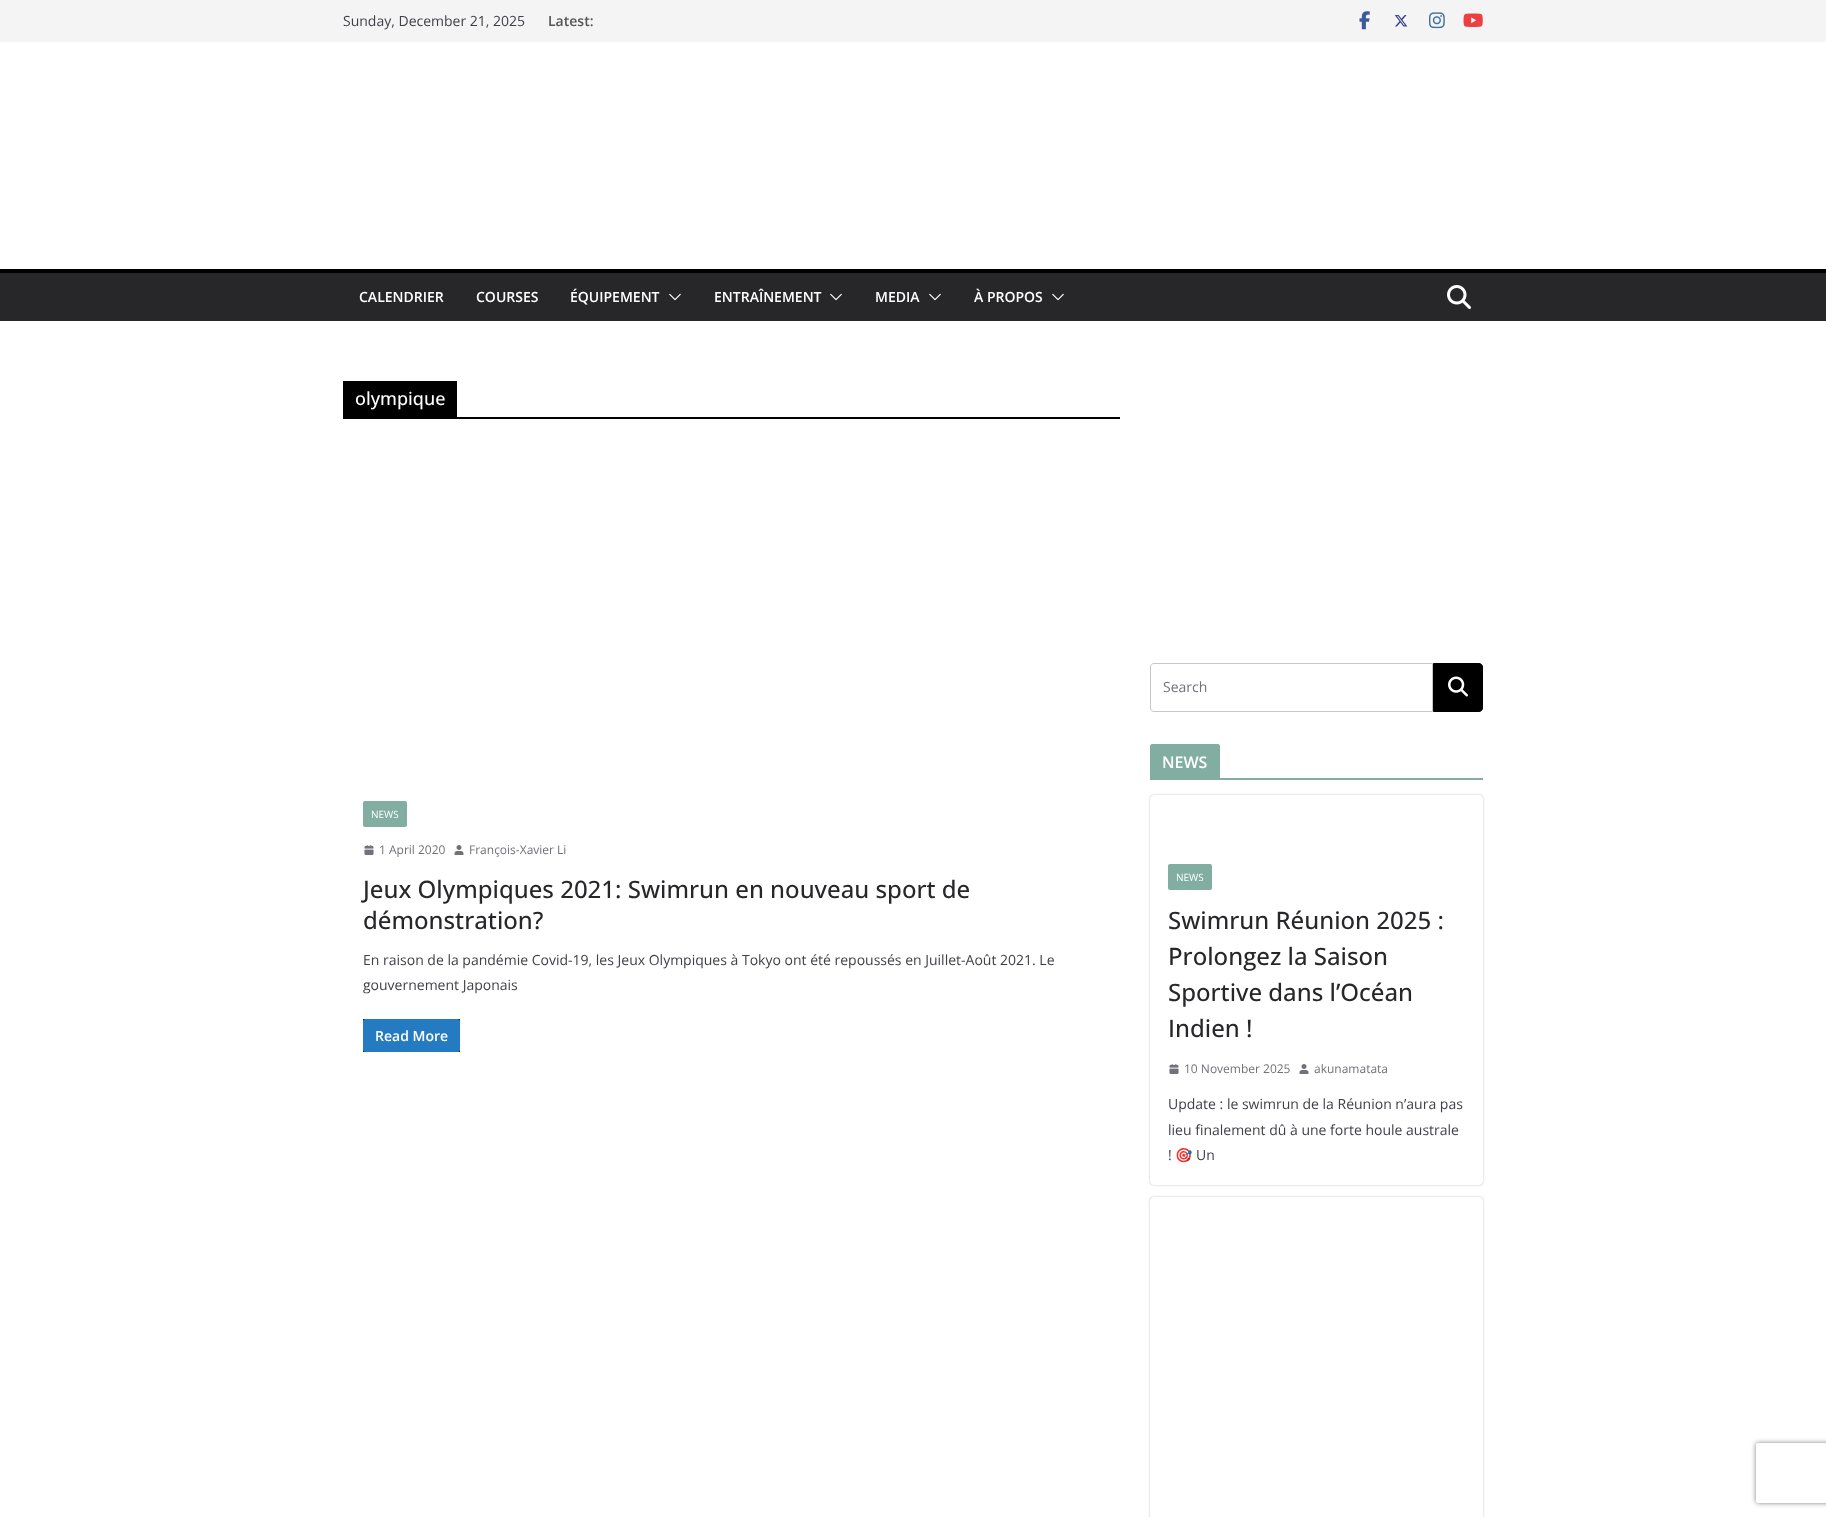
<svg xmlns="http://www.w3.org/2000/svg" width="1826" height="1517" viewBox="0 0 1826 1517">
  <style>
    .t1 { font: 14px Open Sans; fill: #3f3f46; }
    .t2 { font: 600 14px Open Sans; fill: #555; }
    .t3 { font: 600 14px Open Sans; fill: #fff; }
    .t4 { font: 500 18px Open Sans; fill: #fff; }
    .t5 { font: 10px Open Sans; fill: #fff; }
    .t6 { font: 12px Open Sans; fill: #71717a; }
    .t7 { font: 500 24px Open Sans; fill: #27272a; }
    .t8 { font: 14px Open Sans; fill: #71717a; }
    .t9 { font: 600 16px Open Sans; fill: #fff; }
    .t10 { font: 14px Noto Color Emoji; fill: #3f3f46; }
  </style>
  <defs>
    <clipPath id="clip1"><path d="M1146 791H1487V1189H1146ZM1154 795H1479C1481 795 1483 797 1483 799V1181C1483 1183 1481 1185 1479 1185H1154C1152 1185 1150 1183 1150 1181V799C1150 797 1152 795 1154 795Z" clip-rule="evenodd"/></clipPath>
    <clipPath id="clip2"><path d="M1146 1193H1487V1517H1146ZM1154 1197H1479C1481 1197 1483 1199 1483 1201V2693C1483 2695 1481 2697 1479 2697H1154C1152 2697 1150 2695 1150 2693V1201C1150 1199 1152 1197 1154 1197Z" clip-rule="evenodd"/></clipPath>
    <clipPath id="clip3"><path d="M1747 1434H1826V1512H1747ZM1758 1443H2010C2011 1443 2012 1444 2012 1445V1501C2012 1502 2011 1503 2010 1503H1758C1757 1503 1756 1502 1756 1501V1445C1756 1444 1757 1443 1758 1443Z" clip-rule="evenodd"/></clipPath>
  </defs>
  <rect width="100%" height="100%" fill="#fff"/>
  <rect x="0" y="0" width="1826" height="41" fill="#0000001a" filter="blur(1px)"/>
  <rect x="0" y="0" width="1826" height="41" fill="#f4f4f5"/>
  <text x="343" y="26" class="t1">Sunday, December 21, 2025</text>
  <text x="548" y="26" class="t2">Latest:</text>
  <image x="1359" y="11" width="11" height="19" href="images/1.png"/>
  <image x="1394" y="15" width="14" height="12" href="images/2.png"/>
  <image x="1429" y="12" width="16" height="17" href="images/3.png"/>
  <image x="1463" y="13" width="20" height="14" href="images/4.png"/>
  <rect x="0" y="273" width="1826" height="48" fill="#27272a"/>
  <rect x="0" y="269" width="1826" height="4" fill="#000"/>
  <text x="359" y="302" class="t3">CALENDRIER</text>
  <text x="476" y="302" class="t3">COURSES</text>
  <text x="570" y="302" class="t3">ÉQUIPEMENT</text>
  <image x="669" y="293" width="12" height="8" href="images/5.png"/>
  <text x="714" y="302" class="t3">ENTRAÎNEMENT</text>
  <image x="830" y="293" width="12" height="8" href="images/5.png"/>
  <text x="875" y="302" class="t3">MEDIA</text>
  <image x="929" y="293" width="12" height="8" href="images/5.png"/>
  <text x="974" y="302" class="t3">À PROPOS</text>
  <image x="1052" y="293" width="12" height="8" href="images/5.png"/>
  <image x="1447" y="285" width="24" height="24" href="images/6.png"/>
  <rect x="343" y="417" width="777" height="2" fill="#000"/>
  <rect x="343" y="381" width="114" height="36" fill="#000"/>
  <text x="355" y="405" class="t4">olympique</text>
  <rect x="363" y="801" width="44" height="26" rx="2" fill="#82ada1"/>
  <text x="371" y="818" class="t5">NEWS</text>
  <image x="364" y="845" width="10" height="10" href="images/7.png"/>
  <text x="379" y="854" class="t6">1 April 2020</text>
  <image x="454" y="845" width="10" height="10" href="images/8.png"/>
  <text x="469" y="854" class="t6">François-Xavier Li</text>
  <text x="363" y="898" class="t7">Jeux Olympiques 2021: Swimrun en nouveau sport de</text>
  <text x="363" y="929" class="t7">démonstration?</text>
  <text x="363" y="965" class="t1">En raison de la pandémie Covid-19, les Jeux Olympiques à Tokyo ont été repoussés en Juillet-Août 2021. Le</text>
  <text x="363" y="990" class="t1">gouvernement Japonais</text>
  <rect x="363" y="1019" width="97" height="33" fill="#000"/>
  <rect x="363" y="1019" width="97" height="33" rx="2" fill="#257bc1"/>
  <text x="375" y="1041" class="t3">Read More</text>
  <path d="M1154 663.5H1432.5V711.5H1154C1152 711.5 1150.5 710 1150.5 708V667C1150.5 665 1152 663.5 1154 663.5Z" fill="none" stroke="#c7c7c7"/>
  <text x="1163" y="692" class="t8">Search</text>
  <path d="M1433.5 663.5H1479C1481 663.5 1482.5 665 1482.5 667V708C1482.5 710 1481 711.5 1479 711.5H1433.5Z" fill="#000" stroke="#000"/>
  <image x="1448" y="676" width="20" height="21" href="images/9.png"/>
  <rect x="1150" y="778" width="333" height="2" fill="#82ada1"/>
  <path d="M1152 744H1218C1219 744 1220 745 1220 746V778H1150V746C1150 745 1151 744 1152 744Z" fill="#82ada1"/>
  <text x="1162" y="768" class="t9">NEWS</text>
  <g clip-path="url(#clip1)">
    <rect x="1150" y="795" width="333" height="390" rx="4" fill="#0000003d" filter="blur(1px)"/>
  </g>
  <rect x="1168" y="864" width="44" height="26" rx="2" fill="#82ada1"/>
  <text x="1176" y="881" class="t5">NEWS</text>
  <text x="1168" y="929" class="t7">Swimrun Réunion 2025 :</text>
  <text x="1168" y="965" class="t7">Prolongez la Saison</text>
  <text x="1168" y="1001" class="t7">Sportive dans l’Océan</text>
  <text x="1168" y="1037" class="t7">Indien !</text>
  <image x="1169" y="1064" width="10" height="10" href="images/7.png"/>
  <text x="1184" y="1073" class="t6">10 November 2025</text>
  <image x="1299" y="1064" width="10" height="10" href="images/8.png"/>
  <text x="1314" y="1073" class="t6">akunamatata</text>
  <text x="1168" y="1109" class="t1">Update : le swimrun de la Réunion n’aura pas</text>
  <text x="1168" y="1135" class="t1">lieu finalement dû à une forte houle australe</text>
  <text x="1168" y="1160" class="t1">!</text>
  <text x="1175" y="1160" class="t10">🎯</text>
  <text x="1196" y="1160" class="t1">Un</text>
  <g clip-path="url(#clip2)">
    <rect x="1150" y="1197" width="333" height="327" rx="4" fill="#0000003d" filter="blur(1px)"/>
  </g>
  <g clip-path="url(#clip3)">
    <rect x="1756" y="1443" width="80" height="60" rx="2" fill="#808080" filter="blur(2.5px)"/>
  </g>
</svg>
